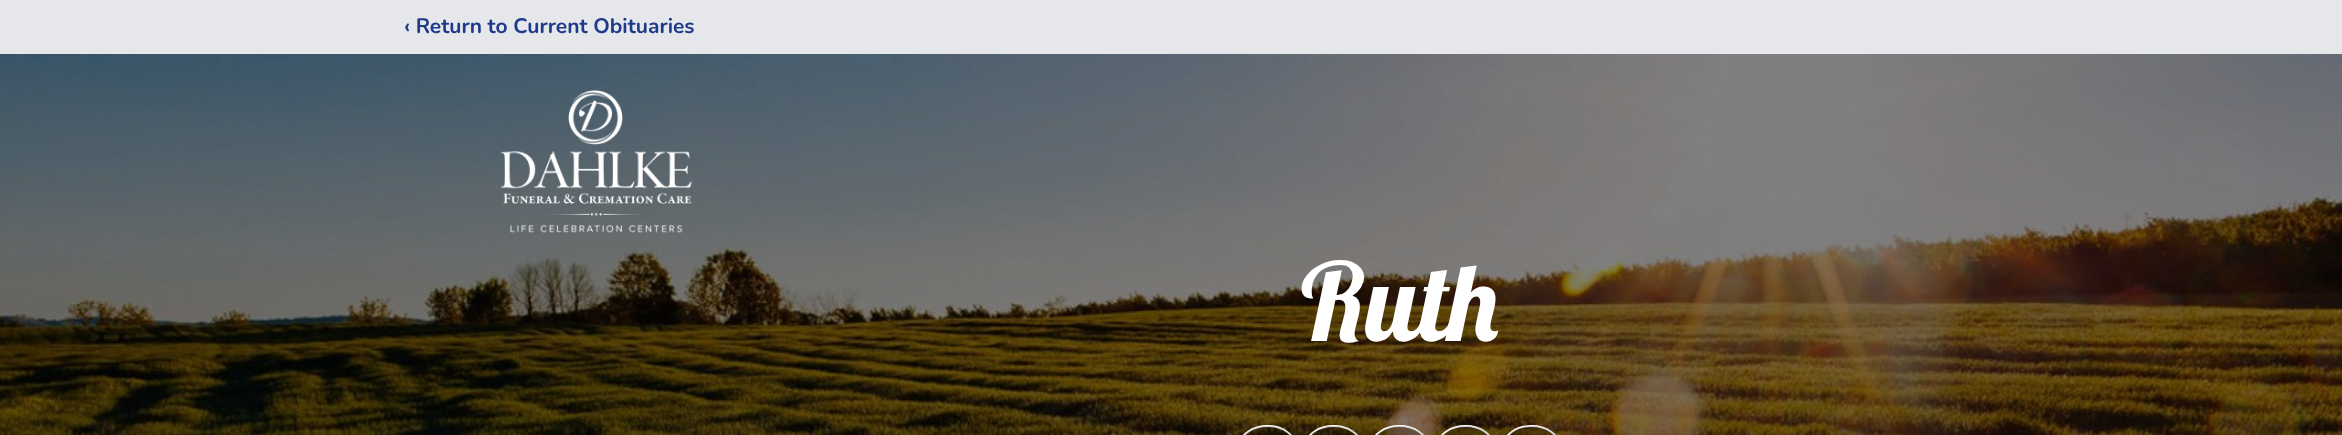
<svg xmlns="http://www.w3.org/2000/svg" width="2342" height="435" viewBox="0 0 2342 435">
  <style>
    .t1 { font: bold 21px Nunito; fill: #1e3a8a; }
    .t2 { font: 108px Lobster; fill: #fff; }
  </style>
  <rect width="100%" height="100%" fill="#e5e7eb"/>
  <text x="404" y="33" class="t1">‹ Return to Current Obituaries</text>
  <image x="0" y="54" width="2342" height="381" href="images/1.png"/>
  <image x="500" y="90" width="192" height="143" href="images/2.png"/>
  <text x="1301" y="341" class="t2">Ruth</text>
  <rect x="1240" y="426" width="55" height="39" rx="27.5" fill="none" stroke="#fff" stroke-width="2"/>
  <rect x="1241" y="426" width="54" height="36" rx="27" fill="#00000033"/>
  <rect x="1306" y="426" width="55" height="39" rx="27.5" fill="none" stroke="#fff" stroke-width="2"/>
  <rect x="1307" y="426" width="54" height="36" rx="27" fill="#00000033"/>
  <rect x="1372" y="426" width="55" height="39" rx="27.5" fill="none" stroke="#fff" stroke-width="2"/>
  <rect x="1373" y="426" width="54" height="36" rx="27" fill="#00000033"/>
  <rect x="1438" y="426" width="55" height="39" rx="27.5" fill="none" stroke="#fff" stroke-width="2"/>
  <rect x="1439" y="426" width="54" height="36" rx="27" fill="#00000033"/>
  <rect x="1504" y="426" width="55" height="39" rx="27.5" fill="none" stroke="#fff" stroke-width="2"/>
  <rect x="1505" y="426" width="54" height="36" rx="27" fill="#00000033"/>
</svg>
